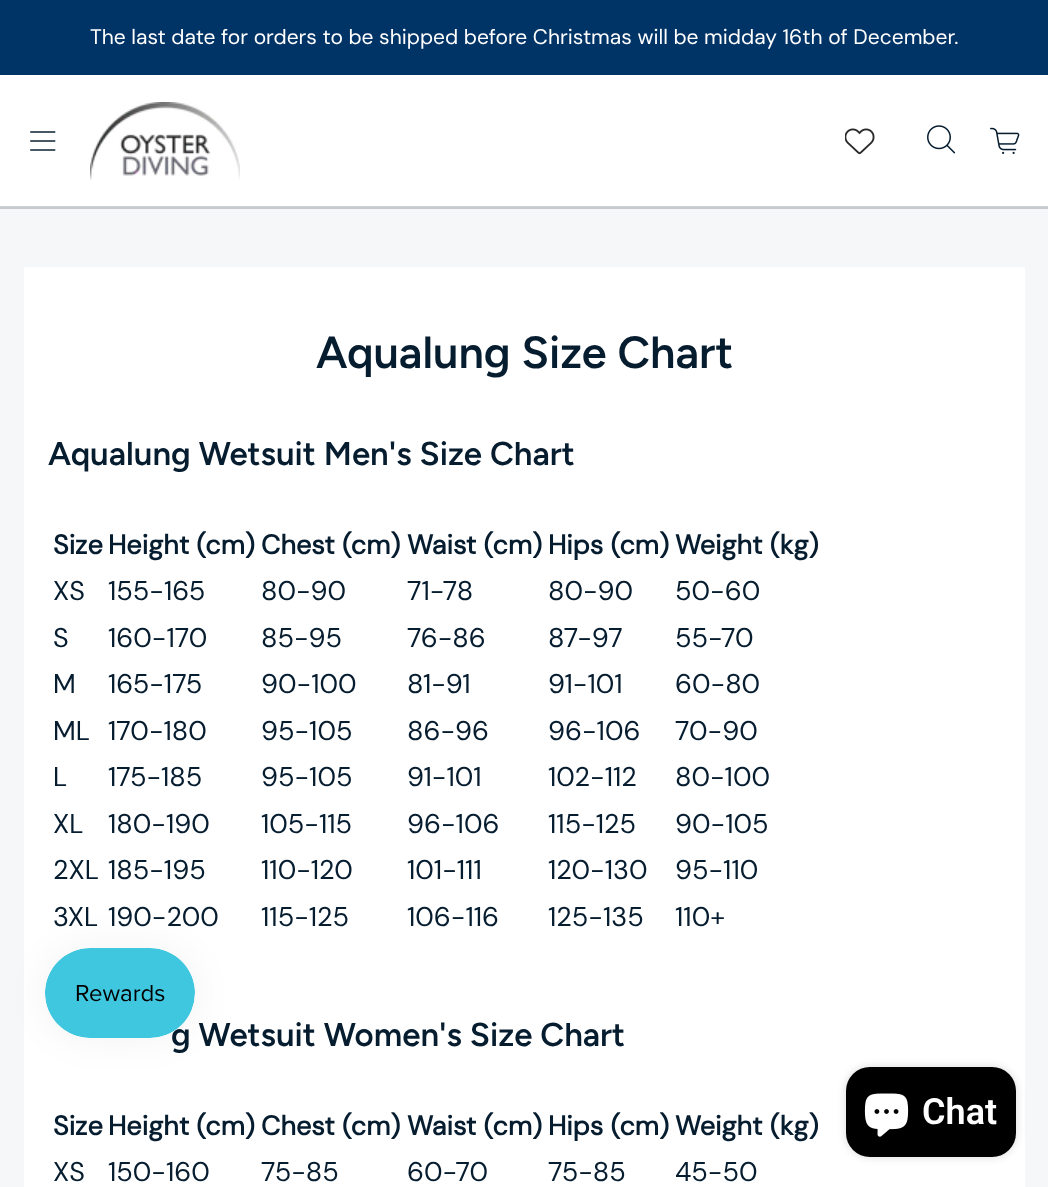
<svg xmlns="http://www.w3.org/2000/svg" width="1048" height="1187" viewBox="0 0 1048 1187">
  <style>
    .t1 { font: 21px DM Sans; fill: #fff; }
    .t2 { font: 600 45px Figtree; fill: #061c2f; }
    .t3 { font: 600 33px Figtree; fill: #061c2f; }
    .t4 { font: bold 27px DM Sans; fill: #061c2f; }
    .t5 { font: 27px 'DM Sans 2'; fill: #061c2f; }
    .t6 { font: 600 36px Roboto; fill: #fff; }
  </style>
  <rect width="100%" height="100%" fill="#fff"/>
  <rect x="0" y="206" width="1048" height="1" fill="#cdd2d5"/>
  <rect x="0" y="0" width="1048" height="75" fill="#036"/>
  <text x="90" y="44" class="t1">The last date for orders to be shipped before Christmas will be midday 16th of December.</text>
  <image x="30" y="131" width="26" height="20" href="images/1.png"/>
  <image x="90" y="102" width="150" height="78" href="images/2.png"/>
  <image x="845" y="128" width="30" height="27" href="images/3.png"/>
  <image x="927" y="125" width="29" height="29" href="images/4.png"/>
  <image x="990" y="127" width="30" height="27" href="images/5.png"/>
  <rect x="0" y="209" width="1048" height="978" fill="#f6f7f8"/>
  <rect x="0" y="207" width="1048" height="2" fill="#c6cbd0"/>
  <rect x="24" y="267" width="1001" height="920" fill="#fff"/>
  <text x="316" y="368" class="t2">Aqualung Size Chart</text>
  <text x="48" y="465" class="t3">Aqualung Wetsuit Men's Size Chart</text>
  <text x="53" y="554" class="t4">Size</text>
  <text x="108" y="554" class="t4">Height (cm)</text>
  <text x="261" y="554" class="t4">Chest (cm)</text>
  <text x="407" y="554" class="t4">Waist (cm)</text>
  <text x="548" y="554" class="t4">Hips (cm)</text>
  <text x="675" y="554" class="t4">Weight (kg)</text>
  <text x="53" y="600" class="t5">XS</text>
  <text x="108" y="600" class="t5">155-165</text>
  <text x="261" y="600" class="t5">80-90</text>
  <text x="407" y="600" class="t5">71-78</text>
  <text x="548" y="600" class="t5">80-90</text>
  <text x="675" y="600" class="t5">50-60</text>
  <text x="53" y="647" class="t5">S</text>
  <text x="108" y="647" class="t5">160-170</text>
  <text x="261" y="647" class="t5">85-95</text>
  <text x="407" y="647" class="t5">76-86</text>
  <text x="548" y="647" class="t5">87-97</text>
  <text x="675" y="647" class="t5">55-70</text>
  <text x="53" y="693" class="t5">M</text>
  <text x="108" y="693" class="t5">165-175</text>
  <text x="261" y="693" class="t5">90-100</text>
  <text x="407" y="693" class="t5">81-91</text>
  <text x="548" y="693" class="t5">91-101</text>
  <text x="675" y="693" class="t5">60-80</text>
  <text x="53" y="740" class="t5">ML</text>
  <text x="108" y="740" class="t5">170-180</text>
  <text x="261" y="740" class="t5">95-105</text>
  <text x="407" y="740" class="t5">86-96</text>
  <text x="548" y="740" class="t5">96-106</text>
  <text x="675" y="740" class="t5">70-90</text>
  <text x="53" y="786" class="t5">L</text>
  <text x="108" y="786" class="t5">175-185</text>
  <text x="261" y="786" class="t5">95-105</text>
  <text x="407" y="786" class="t5">91-101</text>
  <text x="548" y="786" class="t5">102-112</text>
  <text x="675" y="786" class="t5">80-100</text>
  <text x="53" y="833" class="t5">XL</text>
  <text x="108" y="833" class="t5">180-190</text>
  <text x="261" y="833" class="t5">105-115</text>
  <text x="407" y="833" class="t5">96-106</text>
  <text x="548" y="833" class="t5">115-125</text>
  <text x="675" y="833" class="t5">90-105</text>
  <text x="53" y="879" class="t5">2XL</text>
  <text x="108" y="879" class="t5">185-195</text>
  <text x="261" y="879" class="t5">110-120</text>
  <text x="407" y="879" class="t5">101-111</text>
  <text x="548" y="879" class="t5">120-130</text>
  <text x="675" y="879" class="t5">95-110</text>
  <text x="53" y="926" class="t5">3XL</text>
  <text x="108" y="926" class="t5">190-200</text>
  <text x="261" y="926" class="t5">115-125</text>
  <text x="407" y="926" class="t5">106-116</text>
  <text x="548" y="926" class="t5">125-135</text>
  <text x="675" y="926" class="t5">110+</text>
  <text x="171" y="1046" class="t3">g Wetsuit Women's Size Chart</text>
  <text x="53" y="1135" class="t4">Size</text>
  <text x="108" y="1135" class="t4">Height (cm)</text>
  <text x="261" y="1135" class="t4">Chest (cm)</text>
  <text x="407" y="1135" class="t4">Waist (cm)</text>
  <text x="548" y="1135" class="t4">Hips (cm)</text>
  <text x="675" y="1135" class="t4">Weight (kg)</text>
  <text x="53" y="1181" class="t5">XS</text>
  <text x="108" y="1181" class="t5">150-160</text>
  <text x="261" y="1181" class="t5">75-85</text>
  <text x="407" y="1181" class="t5">60-70</text>
  <text x="548" y="1181" class="t5">75-85</text>
  <text x="675" y="1181" class="t5">45-50</text>
  <rect x="45" y="948" width="150" height="90" rx="45" fill="#0000000d" filter="blur(19px)"/>
  <image x="45" y="948" width="150" height="90" href="images/6.png"/>
  <rect x="846" y="1067" width="170" height="90" rx="24" fill="#00000026" filter="blur(4px)"/>
  <rect x="846" y="1067" width="170" height="90" rx="24" fill="#000"/>
  <image x="864" y="1093" width="45" height="44" href="images/7.png"/>
  <text x="922" y="1124" class="t6">Chat</text>
</svg>
